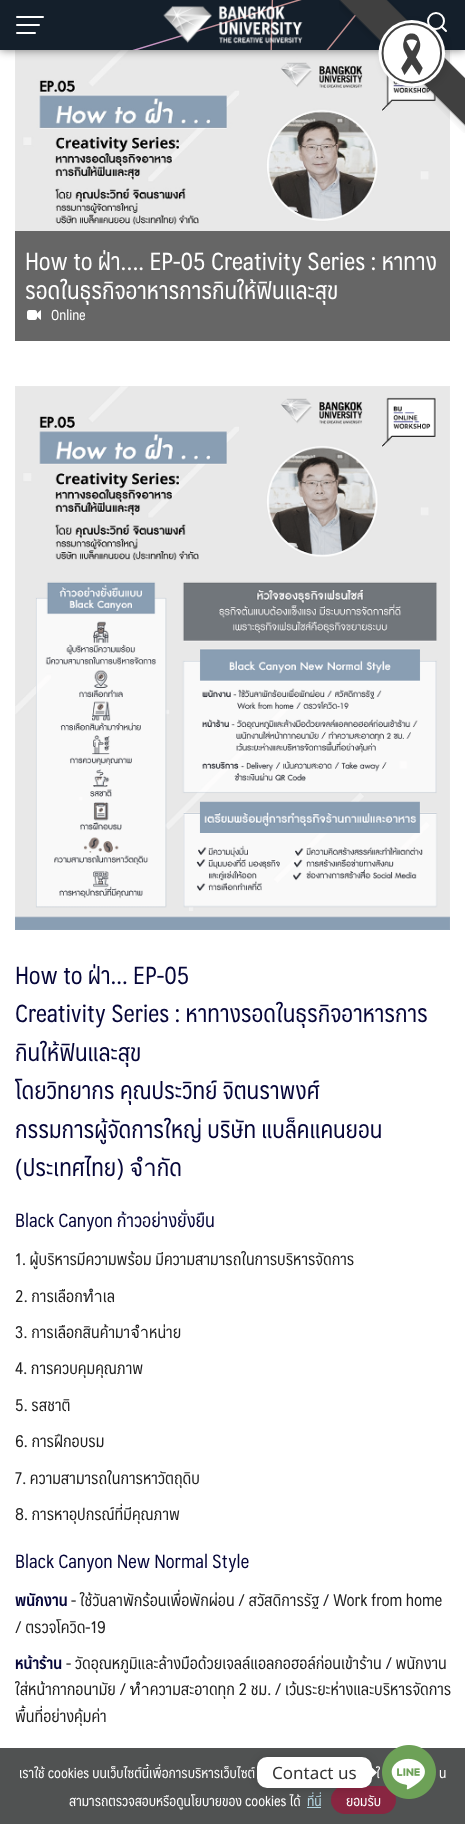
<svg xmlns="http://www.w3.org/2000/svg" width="465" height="1824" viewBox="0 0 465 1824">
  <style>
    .t1 { font: 24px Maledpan; fill: #fff; }
    .t2 { font: 14px Maledpan; fill: #fff; }
    .t3 { font: 24px Maledpan; fill: #060639; }
    .t4 { font: 18.7px Maledpan; fill: #060639; }
    .t5 { font: 16.5px Maledpan; fill: #222; }
    .t6 { font: bold 16.5px Maledpan; fill: #060639; }
    .t7 { font: 14px Maledpan; fill: #b5d7e3; }
    .t8 { font: 17px Noto Sans; fill: #333; }
  </style>
  <rect width="100%" height="100%" fill="#fff"/>
  <image x="15" y="50" width="435" height="181" href="images/4.png"/>
  <rect x="0" y="0" width="465" height="50" fill="#00000080" filter="blur(5px)"/>
  <rect x="0" y="0" width="465" height="50" fill="#141f2b"/>
  <image x="132" y="0" width="224" height="50" href="images/2.png"/>
  <circle cx="436" cy="21" r="8" fill="none" stroke="#fff" stroke-width="2"/>
  <path d="M446 31L441.5 26.5" fill="none" stroke="#fff" stroke-width="2" stroke-linecap="round" stroke-linejoin="round"/>
  <image x="339" y="0" width="126" height="133" href="images/1.png"/>
  <rect x="16" y="24" width="24" height="2" rx="1" fill="#fff"/>
  <rect x="16" y="16" width="28" height="2" rx="1" fill="#fff"/>
  <rect x="16" y="32" width="20" height="2" rx="1" fill="#fff"/>
  <image x="163" y="6" width="140" height="38" href="images/3.png"/>
  <rect x="15" y="231" width="435" height="110" fill="#666"/>
  <text x="25" y="270" class="t1">How to ฝ่า…. EP-05 Creativity Series : หาทาง</text>
  <text x="25" y="299" class="t1">รอดในธุรกิจอาหารการกินให้ฟินและสุข</text>
  <image x="27" y="310" width="14" height="10" href="images/5.png"/>
  <text x="51" y="320" class="t2">Online</text>
  <image x="15" y="386" width="435" height="544" href="images/6.png"/>
  <text x="15" y="984" class="t3">How to ฝ่า... EP-05</text>
  <text x="15" y="1022" class="t3">Creativity Series : หาทางรอดในธุรกิจอาหารการ</text>
  <text x="15" y="1061" class="t3">กินให้ฟินและสุข</text>
  <text x="15" y="1099" class="t3">โดยวิทยากร คุณประวิทย์ จิตนราพงศ์</text>
  <text x="15" y="1138" class="t3">กรรมการผู้จัดการใหญ่ บริษัท แบล็คแคนยอน</text>
  <text x="15" y="1176" class="t3">(ประเทศไทย) จำกัด</text>
  <text x="15" y="1227" class="t4">Black Canyon ก้าวอย่างยั่งยืน</text>
  <text x="15" y="1265" class="t5">1. ผู้บริหารมีความพร้อม มีความสามารถในการบริหารจัดการ</text>
  <text x="15" y="1302" class="t5">2. การเลือกทำเล</text>
  <text x="15" y="1338" class="t5">3. การเลือกสินค้ามาจำหน่าย</text>
  <text x="15" y="1374" class="t5">4. การควบคุมคุณภาพ</text>
  <text x="15" y="1411" class="t5">5. รสชาติ</text>
  <text x="15" y="1447" class="t5">6. การฝึกอบรม</text>
  <text x="15" y="1484" class="t5">7. ความสามารถในการหาวัตถุดิบ</text>
  <text x="15" y="1520" class="t5">8. การหาอุปกรณ์ที่มีคุณภาพ</text>
  <text x="15" y="1568" class="t4">Black Canyon New Normal Style</text>
  <text x="15" y="1606" class="t6">พนักงาน</text>
  <text x="71" y="1606" class="t5">- ใช้วันลาพักร้อนเพื่อพักผ่อน / สวัสดิการรัฐ / Work from home</text>
  <text x="15" y="1633" class="t5">/ ตรวจโควิด-19</text>
  <text x="15" y="1669" class="t6">หน้าร้าน</text>
  <text x="66" y="1669" class="t5">- วัดอุณหภูมิและล้างมือด้วยเจลล์แอลกอฮอล์ก่อนเข้าร้าน / พนักงาน</text>
  <text x="15" y="1695" class="t5">ใส่หน้ากากอนามัย / ทำความสะอาดทุก 2 ชม. / เว้นระยะห่างและบริหารจัดการ</text>
  <text x="15" y="1722" class="t5">พื้นที่อย่างคุ้มค่า</text>
  <rect x="0" y="1748" width="465" height="76" fill="#505252"/>
  <text x="19" y="1778" class="t2">เราใช้ cookies บนเว็บไซต์นี้เพื่อการบริหารเว็บไซต์</text>
  <text x="376" y="1778" class="t2">ใ</text>
  <text x="439" y="1778" class="t2">น</text>
  <text x="69" y="1806" class="t2">สามารถตรวจสอบหรือดูนโยบายของ cookies ได้</text>
  <text x="307" y="1806" class="t7">ที่นี่</text>
  <rect x="307" y="1807" width="14" height="1" fill="#b5d7e3"/>
  <rect x="331" y="1786" width="65" height="28" rx="14" fill="#882641"/>
  <text x="346" y="1806" class="t2">ยอมรับ</text>
  <image x="382" y="1745" width="54" height="54" href="images/7.png"/>
  <rect x="257" y="1758" width="115" height="31" rx="10" fill="#00000026" filter="blur(4px)"/>
  <rect x="257" y="1757" width="115" height="31" rx="10" fill="#fff"/>
  <text x="272" y="1779" class="t8">Contact us</text>
  <path d="M372 1777.5V1767.5L377 1772.5Z" fill="#fff"/>
</svg>
